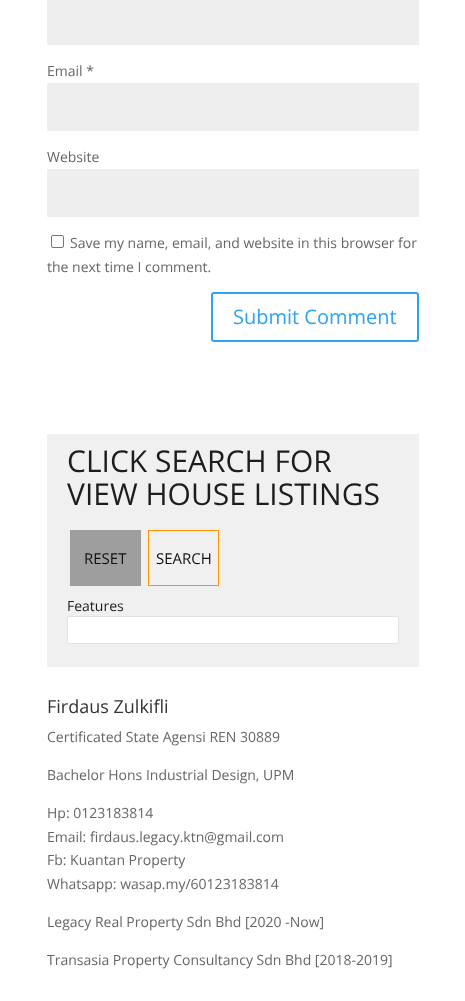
<svg xmlns="http://www.w3.org/2000/svg" width="465" height="1001" viewBox="0 0 465 1001">
  <style>
    .t1 { font: 14px Open Sans; fill: #666; }
    .t2 { font: 20px Open Sans; fill: #2ea3f2; }
    .t3 { font: 30px Open Sans; fill: #1d1d1d; }
    .t4 { font: 15px Open Sans; fill: #111; }
    .t5 { font: 14px Open Sans; fill: #1d1d1d; }
    .t6 { font: 18px Open Sans; fill: #333; }
  </style>
  <rect width="100%" height="100%" fill="#fff"/>
  <rect x="47" y="0" width="372" height="45" fill="#eee"/>
  <text x="47" y="76" class="t1">Email *</text>
  <rect x="47" y="83" width="372" height="48" fill="#eee"/>
  <text x="47" y="162" class="t1">Website</text>
  <rect x="47" y="169" width="372" height="48" fill="#eee"/>
  <rect x="51.5" y="235.5" width="12" height="12" rx="1.5" fill="none" stroke="#767676"/>
  <text x="70" y="248" class="t1">Save my name, email, and website in this browser for</text>
  <text x="47" y="272" class="t1">the next time I comment.</text>
  <rect x="212" y="293" width="206" height="48" rx="2" fill="none" stroke="#2ea3f2" stroke-width="2"/>
  <text x="233" y="324" class="t2">Submit Comment</text>
  <rect x="47" y="434" width="372" height="233" fill="#f0f0f0"/>
  <text x="67" y="472" class="t3">CLICK SEARCH FOR</text>
  <text x="67" y="505" class="t3">VIEW HOUSE LISTINGS</text>
  <rect x="70" y="530" width="71" height="56" fill="#9e9e9e"/>
  <text x="84" y="564" class="t4">RESET</text>
  <rect x="148.5" y="530.5" width="70" height="55" fill="none" stroke="#ff9600"/>
  <text x="156" y="564" class="t4">SEARCH</text>
  <text x="67" y="611" class="t5">Features</text>
  <rect x="67.5" y="616.5" width="331" height="27" rx="1.5" fill="#fff" stroke="#e2e2e2"/>
  <text x="47" y="713" class="t6">Firdaus Zulkifli</text>
  <text x="47" y="742" class="t1">Certificated State Agensi REN 30889</text>
  <text x="47" y="780" class="t1">Bachelor Hons Industrial Design, UPM</text>
  <text x="47" y="818" class="t1">Hp: 0123183814</text>
  <text x="47" y="842" class="t1">Email: firdaus.legacy.ktn@gmail.com</text>
  <text x="47" y="865" class="t1">Fb: Kuantan Property</text>
  <text x="47" y="889" class="t1">Whatsapp: wasap.my/60123183814</text>
  <text x="47" y="927" class="t1">Legacy Real Property Sdn Bhd [2020 -Now]</text>
  <text x="47" y="965" class="t1">Transasia Property Consultancy Sdn Bhd [2018-2019]</text>
</svg>
